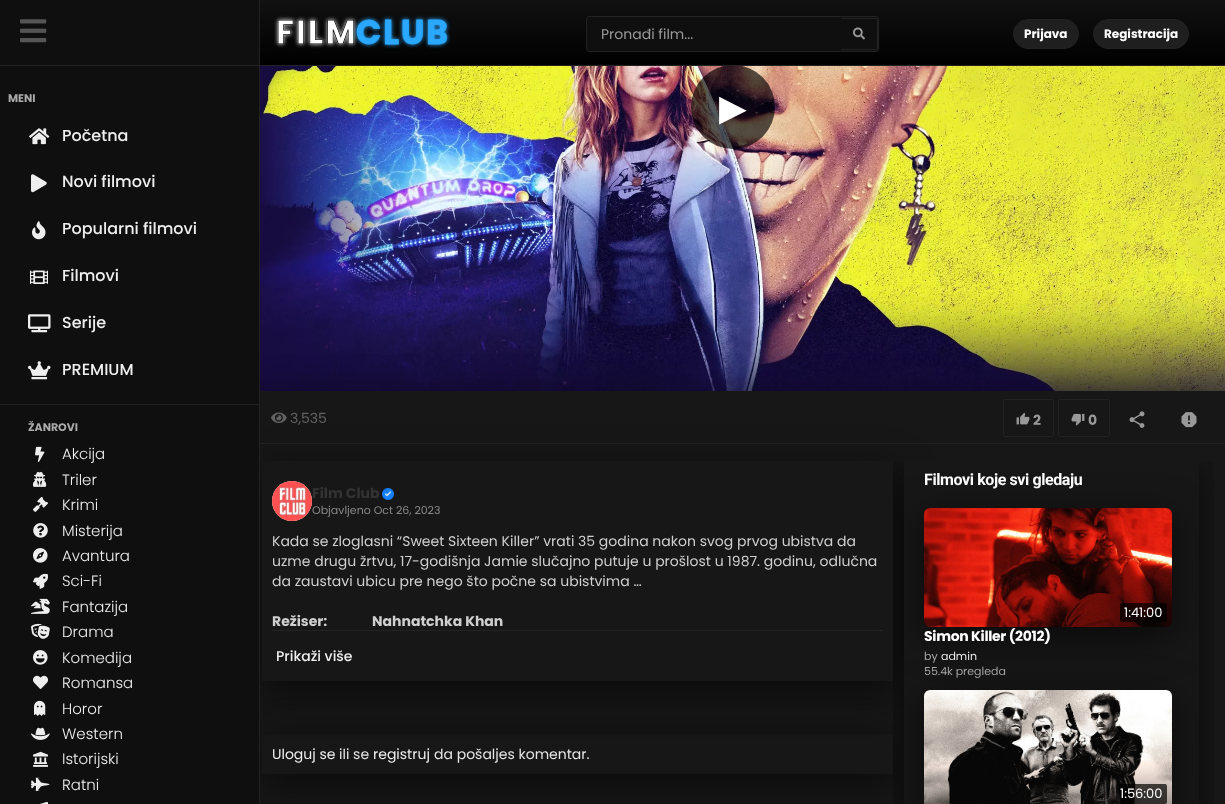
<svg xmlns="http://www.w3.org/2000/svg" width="1225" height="804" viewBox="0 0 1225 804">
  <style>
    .t1 { font: 14px Poppins; fill: #999; }
    .t2 { font: bold 12px Poppins; fill: #fff; }
    .t3 { font: bold 11px Poppins; fill: #aaa; }
    .t4 { font: 500 16px Poppins; fill: #eee; }
    .t5 { font: 300 15px Poppins; fill: #eee; }
    .t6 { font: 36px DejaVu Sans; fill: #fff; }
    .t7 { font: 14px Poppins; fill: #626262; }
    .t8 { font: bold 14px Poppins; fill: #999; }
    .t9 { font: bold 14px Poppins; fill: #333; }
    .t10 { font: 11px Poppins; fill: #888; }
    .t11 { font: 14px Poppins; fill: #cfcfcf; }
    .t12 { font: bold 14px Poppins; fill: #cfcfcf; }
    .t13 { font: 500 14px Poppins; fill: #eee; }
    .t14 { font: 14px Poppins; fill: #eee; }
    .t15 { font: 14px Poppins; fill: #e5e5e5; }
    .t16 { font: bold 16px Roboto; letter-spacing: -0.4px; fill: #fff; }
    .t17 { font: 13px Poppins; fill: #fff; }
    .t18 { font: bold 14px Poppins; letter-spacing: -0.3px; fill: #fff; }
    .t19 { font: 11px Poppins; fill: #aaa; }
    .t20 { font: 11px Poppins; fill: #eee; }
  </style>
  <defs>
    <linearGradient id="g1" gradientUnits="userSpaceOnUse" x1="733" y1="0" x2="733" y2="65"><stop offset="0" stop-color="#111"/><stop offset="1" stop-color="#000"/></linearGradient>
    <clipPath id="clip1"><path d="M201 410H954V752H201ZM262 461H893V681H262Z" clip-rule="evenodd"/></clipPath>
    <clipPath id="clip2"><path d="M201 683H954V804H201ZM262 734H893V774H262Z" clip-rule="evenodd"/></clipPath>
    <clipPath id="clip3"><rect x="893" y="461" width="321" height="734"/></clipPath>
    <clipPath id="clip4"><rect x="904" y="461" width="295" height="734"/></clipPath>
  </defs>
  <rect width="100%" height="100%" fill="#fff"/>
  <rect x="260" y="0" width="965" height="65" fill="url(#g1)"/>
  <image x="260" y="66" width="965" height="325" href="images/25.png"/>
  <circle cx="733" cy="107" r="42" fill="#000000a6"/>
  <rect x="260" y="65" width="965" height="1" fill="#222"/>
  <image x="274" y="15" width="177" height="34" href="images/1.png"/>
  <rect x="586.5" y="16.5" width="292" height="35" rx="2.5" fill="#0f0f0f" stroke="#222"/>
  <text x="601" y="39" class="t1">Pronađi film...</text>
  <path d="M841 18H875C876.5 18 878 19.5 878 21V47C878 48.5 876.5 50 875 50H841ZM841 19H875C876 19 877 20 877 21V47C877 48 876 49 875 49H841Z" fill="#222" fill-rule="evenodd"/>
  <image x="853" y="27" width="12" height="13" href="images/2.png"/>
  <rect x="1013.5" y="19.5" width="65" height="29" rx="14.5" fill="#1f1f1f" stroke="#222"/>
  <text x="1024" y="38" class="t2">Prijava</text>
  <rect x="1093.5" y="19.5" width="95" height="29" rx="14.5" fill="#1f1f1f" stroke="#222"/>
  <text x="1104" y="38" class="t2">Registracija</text>
  <rect x="240" y="401" width="985" height="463" fill="#00000099" filter="blur(20px)"/>
  <rect x="260" y="391" width="965" height="413" fill="#171717"/>
  <rect x="260" y="443" width="965" height="1" fill="#222"/>
  <image x="271" y="412" width="16" height="11" href="images/26.png"/>
  <g clip-path="url(#clip1)">
    <rect x="262" y="471" width="631" height="220" fill="#00000099" filter="blur(20px)"/>
  </g>
  <g clip-path="url(#clip2)">
    <rect x="262" y="744" width="631" height="40" fill="#00000099" filter="blur(20px)"/>
  </g>
  <rect x="0" y="0" width="259" height="804" fill="#0f0f0f"/>
  <rect x="259" y="0" width="1" height="804" fill="#222"/>
  <rect x="0" y="65" width="259" height="1" fill="#222"/>
  <image x="20" y="19" width="27" height="24" href="images/3.png"/>
  <text x="8" y="102" class="t3">MENI</text>
  <image x="29" y="128" width="21" height="17" href="images/4.png"/>
  <text x="62" y="141" class="t4">Početna</text>
  <image x="31" y="174" width="16" height="19" href="images/5.png"/>
  <text x="62" y="187" class="t4">Novi filmovi</text>
  <image x="32" y="221" width="14" height="19" href="images/6.png"/>
  <text x="62" y="234" class="t4">Popularni filmovi</text>
  <image x="30" y="270" width="18" height="14" href="images/7.png"/>
  <text x="62" y="281" class="t4">Filmovi</text>
  <image x="28" y="314" width="23" height="19" href="images/8.png"/>
  <text x="62" y="328" class="t4">Serije</text>
  <image x="28" y="361" width="23" height="19" href="images/9.png"/>
  <text x="62" y="375" class="t4">PREMIUM</text>
  <rect x="0" y="404" width="259" height="1" fill="#222"/>
  <text x="28" y="431" class="t3">ŽANROVI</text>
  <image x="35" y="446" width="10" height="16" href="images/10.png"/>
  <text x="62" y="459" class="t5">Akcija</text>
  <image x="33" y="471" width="14" height="16" href="images/11.png"/>
  <text x="62" y="485" class="t5">Triler</text>
  <image x="33" y="496" width="15" height="16" href="images/12.png"/>
  <text x="62" y="510" class="t5">Krimi</text>
  <image x="33" y="523" width="15" height="15" href="images/13.png"/>
  <text x="62" y="536" class="t5">Misterija</text>
  <image x="33" y="548" width="15" height="15" href="images/14.png"/>
  <text x="62" y="561" class="t5">Avantura</text>
  <image x="33" y="573" width="15" height="16" href="images/15.png"/>
  <text x="62" y="586" class="t5">Sci-Fi</text>
  <image x="31" y="598" width="19" height="16" href="images/16.png"/>
  <text x="62" y="612" class="t5">Fantazija</text>
  <image x="31" y="623" width="19" height="16" href="images/17.png"/>
  <text x="62" y="637" class="t5">Drama</text>
  <image x="33" y="650" width="15" height="15" href="images/18.png"/>
  <text x="62" y="663" class="t5">Komedija</text>
  <image x="33" y="675" width="15" height="14" href="images/19.png"/>
  <text x="62" y="688" class="t5">Romansa</text>
  <image x="34" y="700" width="12" height="16" href="images/20.png"/>
  <text x="62" y="714" class="t5">Horor</text>
  <image x="31" y="727" width="19" height="13" href="images/21.png"/>
  <text x="62" y="739" class="t5">Western</text>
  <image x="33" y="751" width="15" height="16" href="images/22.png"/>
  <text x="62" y="764" class="t5">Istorijski</text>
  <image x="31" y="777" width="19" height="14" href="images/23.png"/>
  <text x="62" y="790" class="t5">Ratni</text>
  <image x="40" y="801" width="8" height="3" href="images/24.png"/>
  <text x="719" y="120" class="t6">▶</text>
  <text x="290" y="423" class="t7">3,535</text>
  <rect x="1003.5" y="399.5" width="50" height="37" rx="1.5" fill="none" stroke="#222"/>
  <image x="1016" y="412" width="14" height="13" href="images/27.png"/>
  <text x="1033" y="425" class="t8">2</text>
  <rect x="1058.5" y="399.5" width="51" height="37" rx="1.5" fill="none" stroke="#222"/>
  <image x="1071" y="413" width="14" height="13" href="images/28.png"/>
  <text x="1088" y="425" class="t8">0</text>
  <image x="1129" y="411" width="16" height="17" href="images/29.png"/>
  <image x="1181" y="412" width="16" height="16" href="images/30.png"/>
  <circle cx="292" cy="501" r="20" fill="#f8f8f8"/>
  <image x="272" y="481" width="40" height="40" href="images/31.png"/>
  <text x="312" y="498" class="t9">Film Club</text>
  <image x="382" y="488" width="12" height="12" href="images/32.png"/>
  <text x="312" y="514" class="t10">Objavljeno Oct 26, 2023</text>
  <rect x="272" y="630" width="611" height="1" fill="#222"/>
  <text x="272" y="546" class="t11">Kada se zloglasni “Sweet Sixteen Killer” vrati 35 godina nakon svog prvog ubistva da</text>
  <text x="272" y="566" class="t11">uzme drugu žrtvu, 17-godišnja Jamie slučajno putuje u prošlost u 1987. godinu, odlučna</text>
  <text x="272" y="586" class="t11">da zaustavi ubicu pre nego što počne sa ubistvima …</text>
  <text x="272" y="626" class="t12">Režiser:</text>
  <text x="372" y="626" class="t12">Nahnatchka Khan</text>
  <text x="276" y="661" class="t13">Prikaži više</text>
  <text x="272" y="759" class="t14">Uloguj se</text>
  <text x="339" y="759" class="t15">ili se</text>
  <text x="373" y="759" class="t14">registruj</text>
  <text x="434" y="759" class="t15">da pošaljes komentar.</text>
  <g clip-path="url(#clip3)">
    <rect x="904" y="471" width="295" height="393" fill="#00000099" filter="blur(20px)"/>
  </g>
  <rect x="904" y="461" width="295" height="343" fill="#171717"/>
  <text x="924" y="485" class="t16">Filmovi koje svi gledaju</text>
  <g clip-path="url(#clip4)">
    <rect x="924" y="518" width="248" height="119" rx="6" fill="#00000099" filter="blur(20px)"/>
  </g>
  <image x="924" y="508" width="248" height="119" href="images/33.png"/>
  <rect x="1120" y="603" width="47" height="19" rx="2" fill="#000000b3"/>
  <text x="1124" y="617" class="t17">1:41:00</text>
  <text x="924" y="641" class="t18">Simon Killer (2012)</text>
  <text x="924" y="660" class="t19">by</text>
  <text x="941" y="660" class="t20">admin</text>
  <text x="924" y="675" class="t19">55.4k pregleda</text>
  <g clip-path="url(#clip4)">
    <rect x="924" y="700" width="248" height="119" rx="6" fill="#00000099" filter="blur(20px)"/>
  </g>
  <image x="924" y="690" width="248" height="114" href="images/34.png"/>
  <rect x="1116" y="784" width="51" height="20" rx="2" fill="#000000b3"/>
  <text x="1120" y="798" class="t17">1:56:00</text>
</svg>
